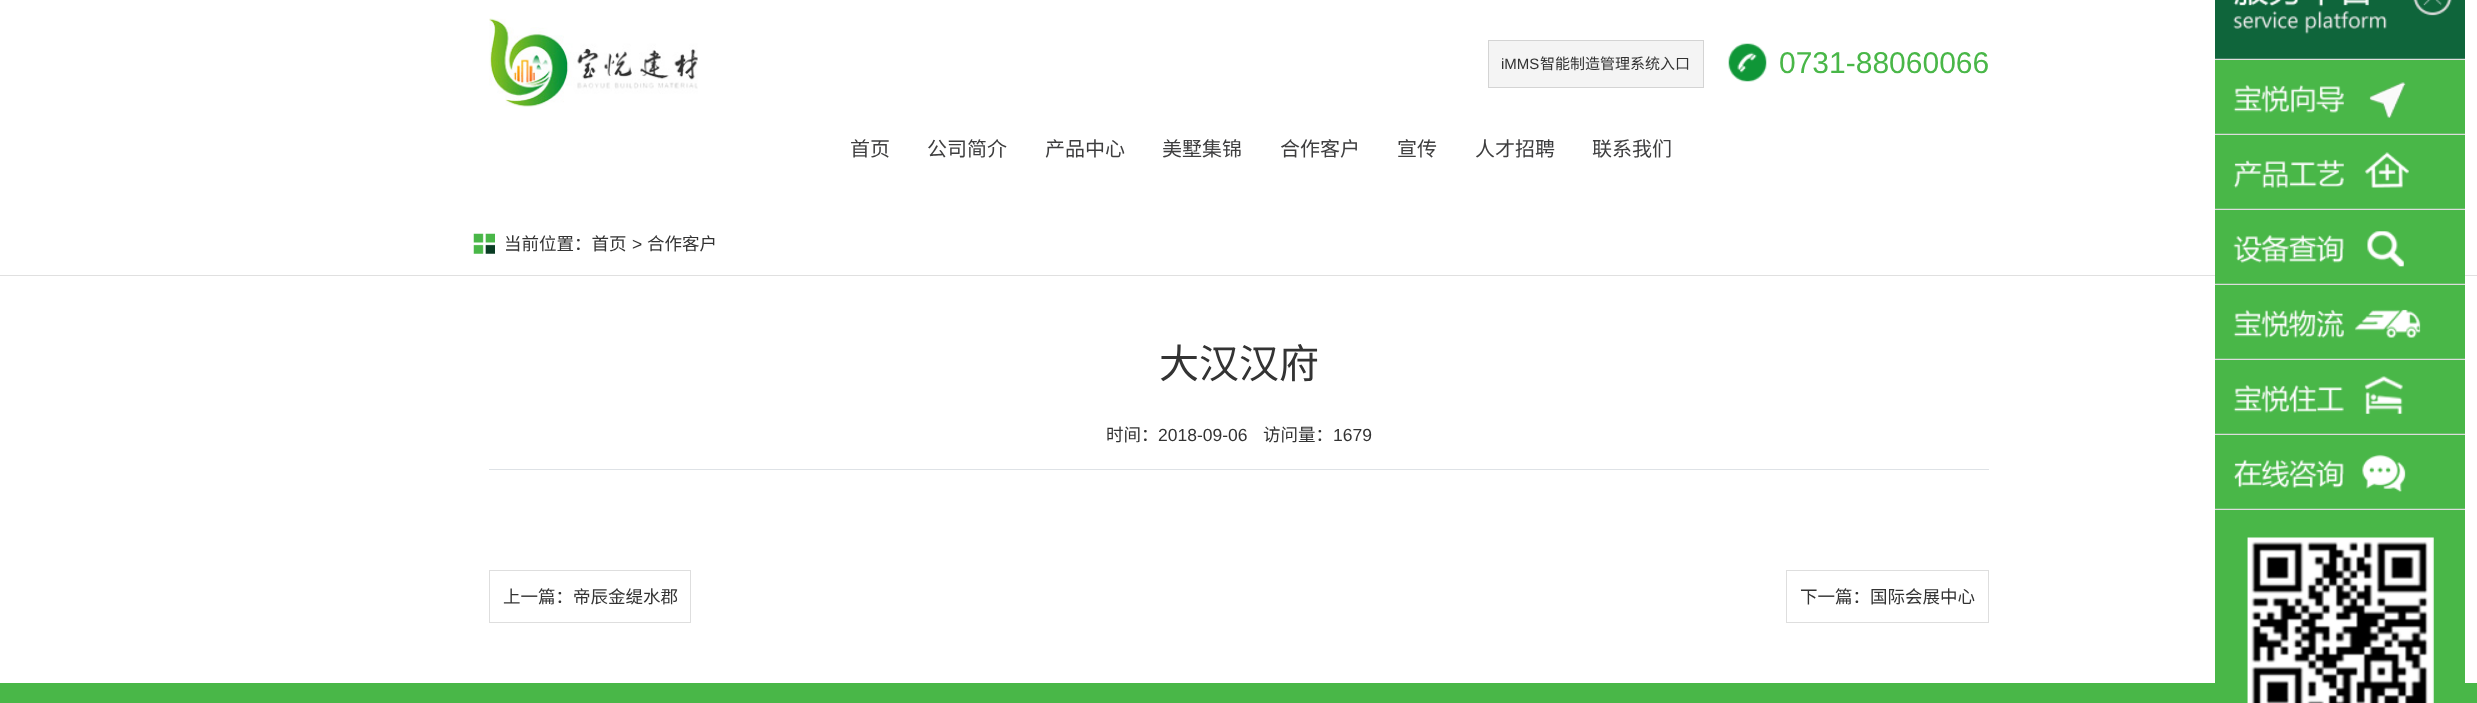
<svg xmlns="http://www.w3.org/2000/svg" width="2477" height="703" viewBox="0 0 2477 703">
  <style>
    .t1 { font: 15px Liberation Sans; fill: #333; }
    .t2 { font: 15px Noto Sans CJK SC; fill: #333; }
    .t3 { font: 30px Liberation Sans; fill: #49b748; }
    .t4 { font: 20px Noto Sans CJK SC; fill: #3e3e3f; }
    .t5 { font: 17.5px Noto Sans CJK SC; fill: #333; }
    .t6 { font: 17.5px Liberation Sans; fill: #333; }
    .t7 { font: 40px Noto Sans CJK SC; fill: #333; }
  </style>
  <rect width="100%" height="100%" fill="#fff"/>
  <image x="489" y="18" width="209" height="89" href="images/1.png"/>
  <rect x="1488.5" y="40.5" width="215" height="47" fill="#f4f4f4" stroke="#d4d4d4"/>
  <text x="1501" y="69" class="t1">iMMS</text>
  <text x="1540" y="69" class="t2">智能制造管理系统入口</text>
  <image x="1728" y="43" width="39" height="39" href="images/2.png"/>
  <text x="1779" y="73" class="t3">0731-88060066</text>
  <text x="850" y="156" class="t4">首页</text>
  <text x="927" y="156" class="t4">公司简介</text>
  <text x="1045" y="156" class="t4">产品中心</text>
  <text x="1162" y="156" class="t4">美墅集锦</text>
  <text x="1280" y="156" class="t4">合作客户</text>
  <text x="1397" y="156" class="t4">宣传</text>
  <text x="1475" y="156" class="t4">人才招聘</text>
  <text x="1592" y="156" class="t4">联系我们</text>
  <image x="2215" y="0" width="250" height="60" href="images/3.png"/>
  <image x="2215" y="60" width="250" height="75" href="images/4.png"/>
  <image x="2215" y="135" width="250" height="75" href="images/5.png"/>
  <rect x="0" y="275" width="2477" height="1" fill="#e0e0e0"/>
  <image x="2215" y="210" width="250" height="75" href="images/6.png"/>
  <image x="2215" y="285" width="250" height="75" href="images/7.png"/>
  <image x="2215" y="360" width="250" height="75" href="images/8.png"/>
  <image x="2215" y="435" width="250" height="75" href="images/9.png"/>
  <rect x="0" y="683" width="2477" height="20" fill="#49b748"/>
  <image x="2215" y="510" width="250" height="193" href="images/10.png"/>
  <image x="473" y="233" width="22" height="21" href="images/11.png"/>
  <text x="504" y="250" class="t5">当前位置：首页</text>
  <text x="632" y="250" class="t6">&gt;</text>
  <text x="647" y="250" class="t5">合作客户</text>
  <text x="1159" y="378" class="t7">大汉汉府</text>
  <rect x="489" y="469" width="1500" height="1" fill="#dee2e6"/>
  <text x="1106" y="441" class="t5">时间：</text>
  <text x="1158" y="441" class="t6">2018-09-06</text>
  <text x="1263" y="441" class="t5">访问量：</text>
  <text x="1333" y="441" class="t6">1679</text>
  <rect x="489.5" y="570.5" width="201" height="52" fill="none" stroke="#dedede"/>
  <text x="503" y="603" class="t5">上一篇：帝辰金缇水郡</text>
  <rect x="1786.5" y="570.5" width="202" height="52" fill="none" stroke="#dedede"/>
  <text x="1800" y="603" class="t5">下一篇：国际会展中心</text>
</svg>
